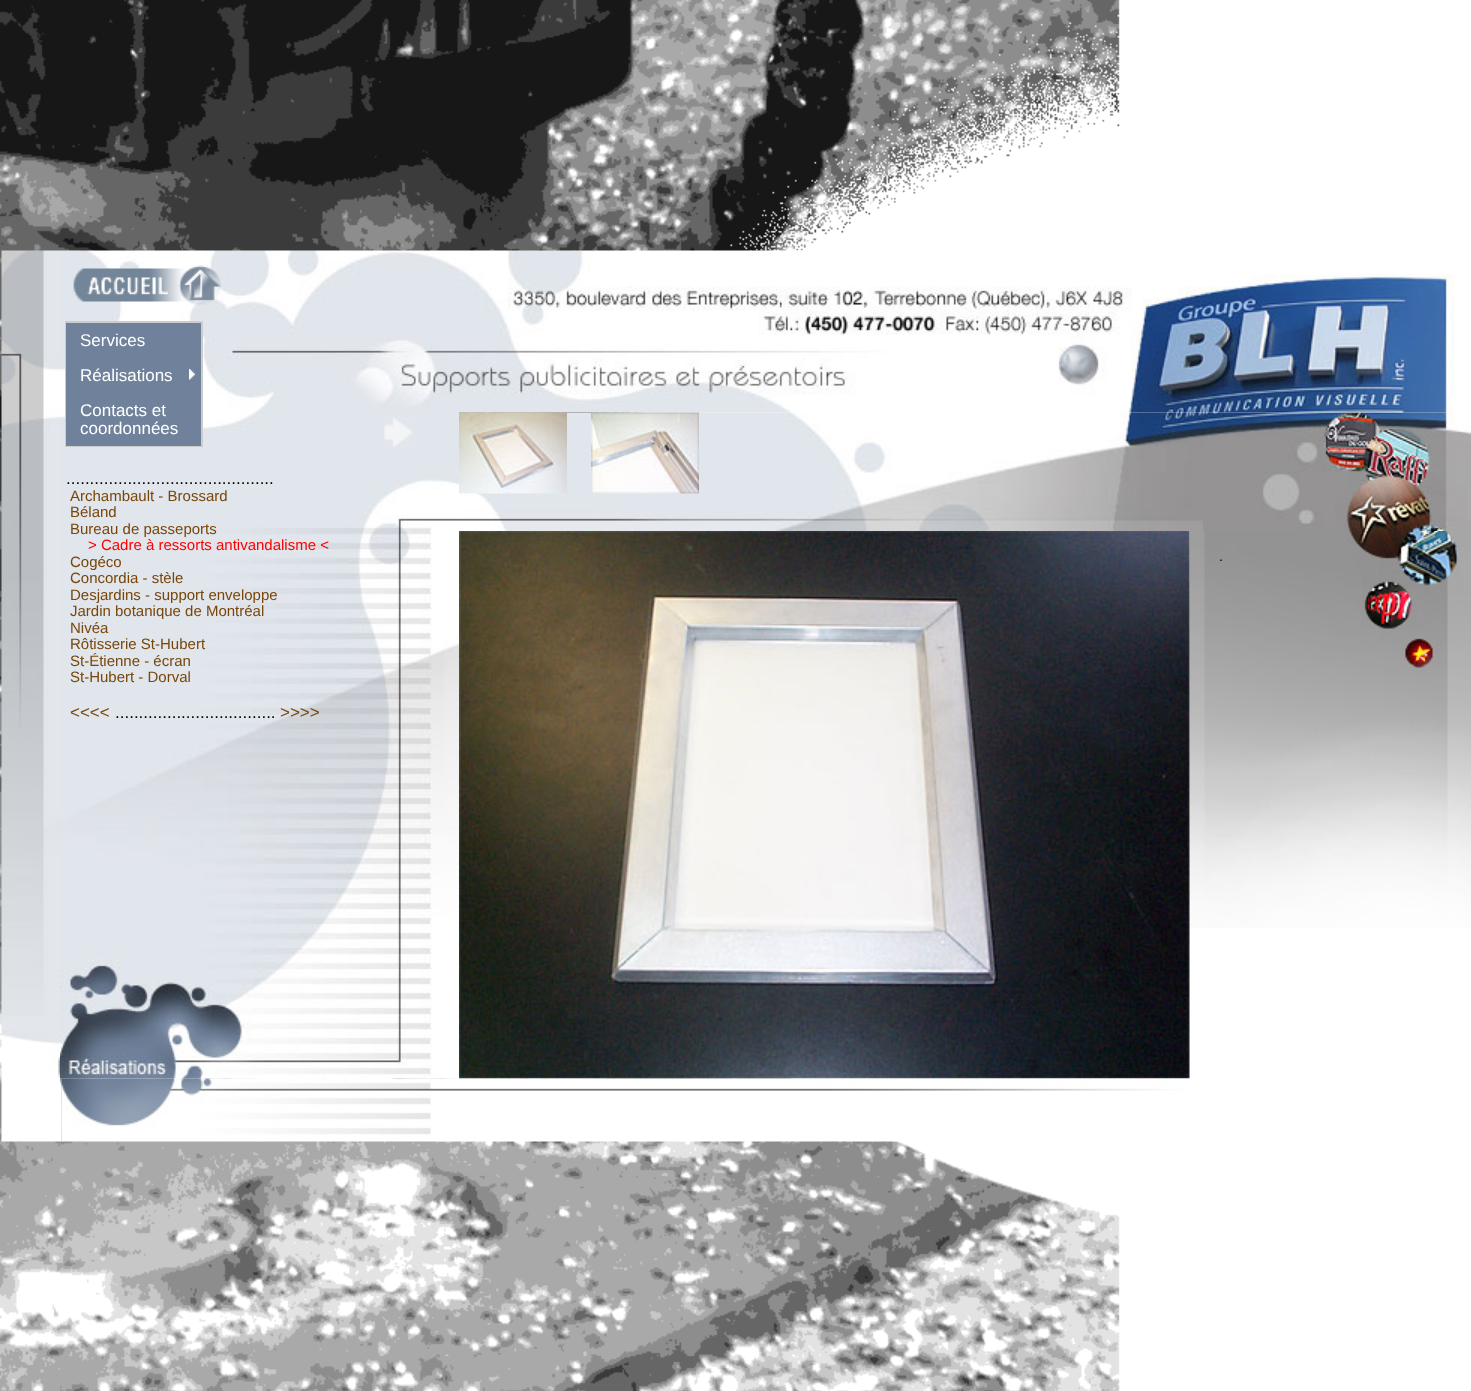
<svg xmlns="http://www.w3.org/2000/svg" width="1471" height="1391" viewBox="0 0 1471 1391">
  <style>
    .t1 { font: 17px Liberation Sans; fill: #fff; }
    .t2 { font: 17px Liberation Sans; fill: #000; }
    .t3 { font: 15px Liberation Sans; fill: #78460b; }
    .t4 { font: 15px Liberation Sans; fill: #f00; }
    .t5 { font: 17px Liberation Sans; fill: #78460b; }
    .t6 { font: 14px Liberation Sans; fill: #000; }
  </style>
  <rect width="100%" height="100%" fill="#fff"/>
  <image x="0" y="0" width="1471" height="1391" href="images/1.png"/>
  <image x="1" y="250" width="59" height="892" href="images/2.png"/>
  <image x="60" y="250" width="399" height="829" href="images/3.png"/>
  <image x="73" y="265" width="148" height="40" href="images/4.png"/>
  <rect x="66" y="322" width="136" height="124" fill="none" stroke="#ccc" stroke-width="2"/>
  <rect x="66" y="323" width="135" height="123" fill="#70829b"/>
  <text x="80" y="346" class="t1">Services</text>
  <image x="189" y="369" width="6" height="11" href="images/5.png"/>
  <text x="80" y="381" class="t1">Réalisations</text>
  <text x="80" y="416" class="t1">Contacts et</text>
  <text x="80" y="434" class="t1">coordonnées</text>
  <image x="384" y="417" width="29" height="30" href="images/6.png"/>
  <text x="66" y="484" class="t2">............................................</text>
  <text x="70" y="501" class="t3">Archambault - Brossard</text>
  <text x="70" y="517" class="t3">Béland</text>
  <text x="70" y="534" class="t3">Bureau de passeports</text>
  <text x="88" y="550" class="t4">&gt; Cadre à ressorts antivandalisme &lt;</text>
  <text x="70" y="567" class="t3">Cogéco</text>
  <text x="70" y="583" class="t3">Concordia - stèle</text>
  <text x="70" y="600" class="t3">Desjardins - support enveloppe</text>
  <text x="70" y="616" class="t3">Jardin botanique de Montréal</text>
  <text x="70" y="633" class="t3">Nivéa</text>
  <text x="70" y="649" class="t3">Rôtisserie St-Hubert</text>
  <text x="70" y="666" class="t3">St-Étienne - écran</text>
  <text x="70" y="682" class="t3">St-Hubert - Dorval</text>
  <text x="70" y="718" class="t5">&lt;&lt;&lt;&lt;</text>
  <text x="115" y="718" class="t2">..................................</text>
  <text x="280" y="718" class="t5">&gt;&gt;&gt;&gt;</text>
  <image x="459" y="412" width="1012" height="119" href="images/8.png"/>
  <image x="459" y="250" width="996" height="163" href="images/7.png"/>
  <image x="459" y="412" width="108" height="82" href="images/9.png"/>
  <image x="591" y="412" width="108" height="82" href="images/10.png"/>
  <image x="1189" y="531" width="282" height="397" href="images/12.png"/>
  <image x="459" y="531" width="731" height="548" href="images/11.png"/>
  <text x="1219" y="561" class="t6">.</text>
  <image x="60" y="1078" width="2" height="64" href="images/13.png"/>
  <image x="61" y="1078" width="398" height="64" href="images/14.png"/>
  <image x="459" y="1078" width="731" height="64" href="images/15.png"/>
</svg>
